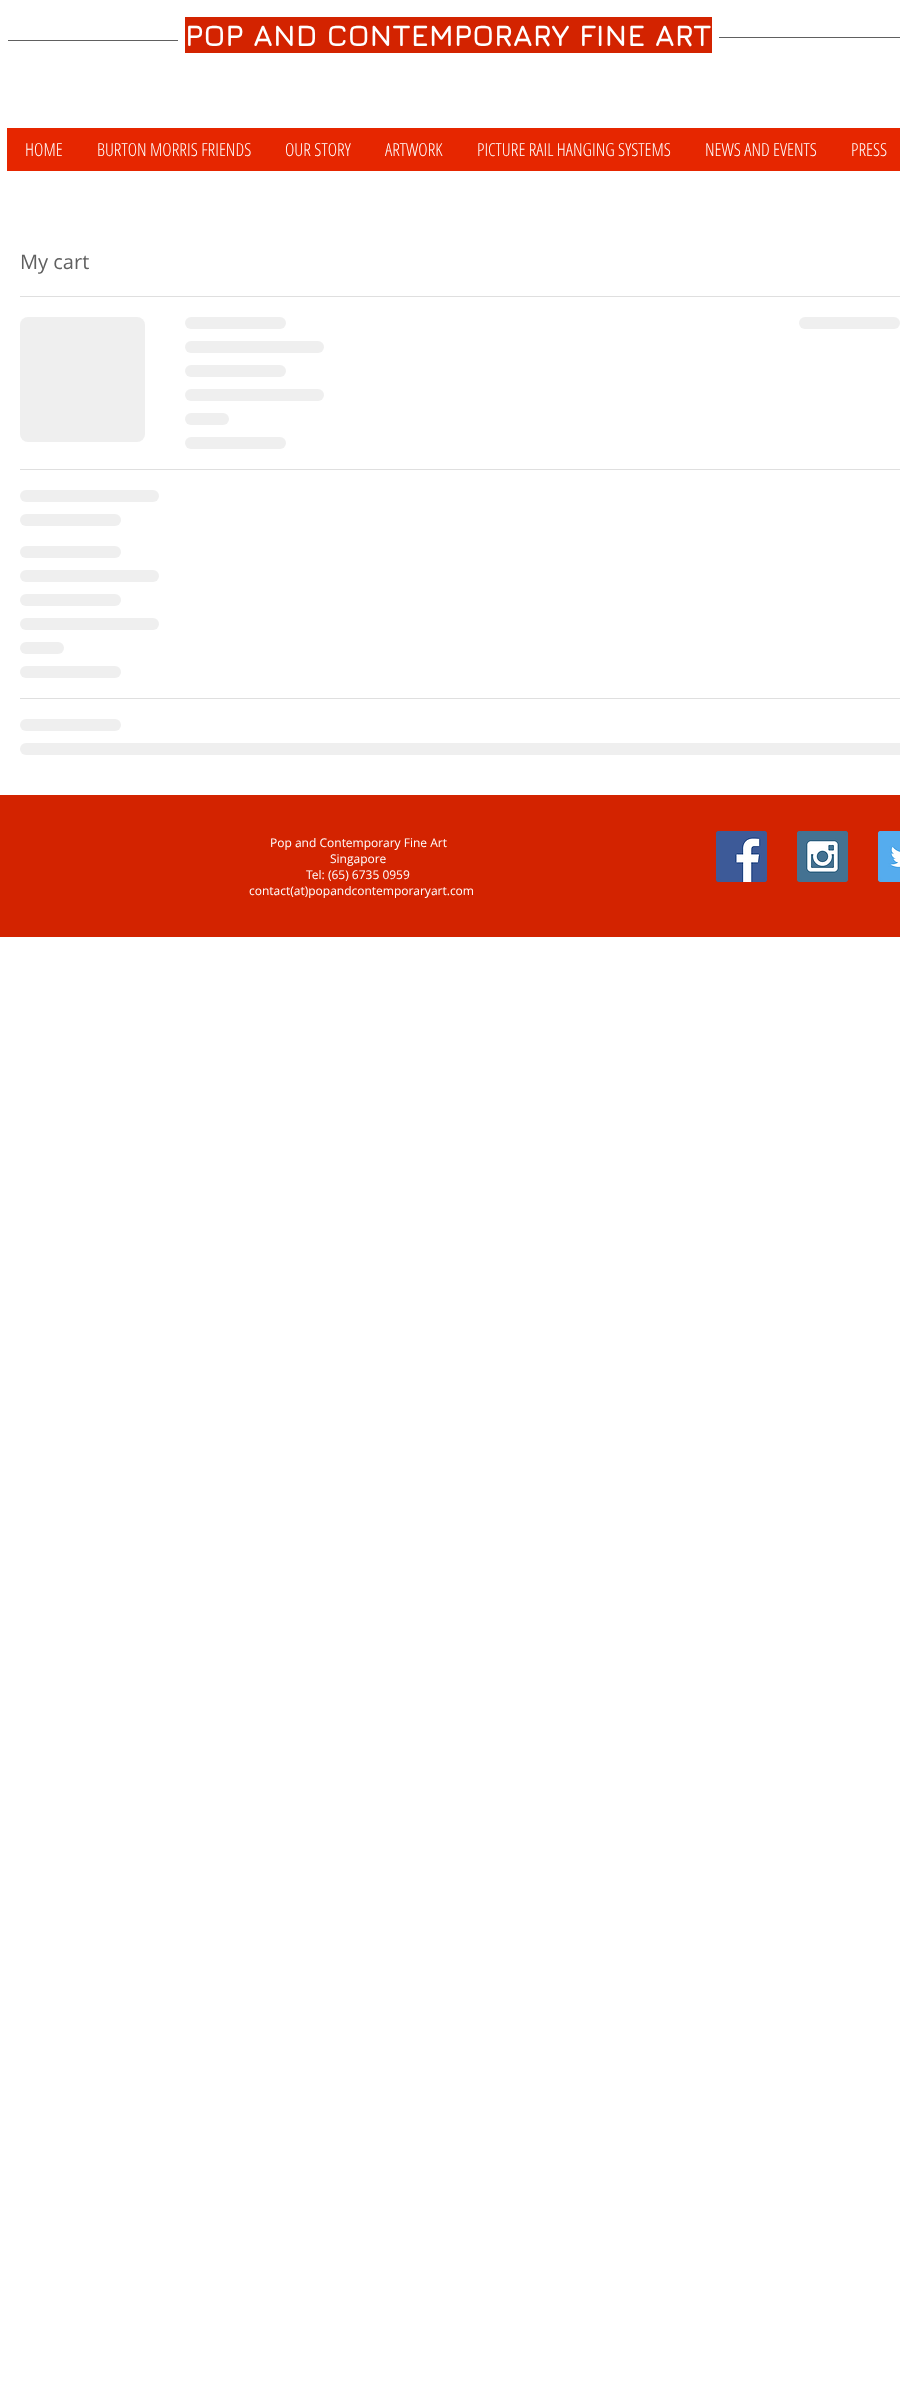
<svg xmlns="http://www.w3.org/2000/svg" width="900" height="2388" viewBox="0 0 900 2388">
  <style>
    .t1 { font: bold 30px Jura; fill: #fff; }
    .t2 { font: 300 18px Open Sans Condensed; fill: #fff; }
    .t3 { font: 20px Open Sans; fill: #606060; }
    .t4 { font: 12px Open Sans; fill: #fff; }
  </style>
  <defs>
    <linearGradient id="g1" gradientUnits="userSpaceOnUse" x1="20" y1="380" x2="520" y2="380"><stop offset="0.25" stop-color="#efefef"/><stop offset="0.37" stop-color="#dfdfdf"/><stop offset="0.63" stop-color="#efefef"/></linearGradient>
    <linearGradient id="g2" gradientUnits="userSpaceOnUse" x1="185" y1="323" x2="589" y2="323"><stop offset="0.25" stop-color="#efefef"/><stop offset="0.37" stop-color="#dfdfdf"/><stop offset="0.63" stop-color="#efefef"/></linearGradient>
    <linearGradient id="g3" gradientUnits="userSpaceOnUse" x1="185" y1="347" x2="741" y2="347"><stop offset="0.25" stop-color="#efefef"/><stop offset="0.37" stop-color="#dfdfdf"/><stop offset="0.63" stop-color="#efefef"/></linearGradient>
    <linearGradient id="g4" gradientUnits="userSpaceOnUse" x1="185" y1="371" x2="589" y2="371"><stop offset="0.25" stop-color="#efefef"/><stop offset="0.37" stop-color="#dfdfdf"/><stop offset="0.63" stop-color="#efefef"/></linearGradient>
    <linearGradient id="g5" gradientUnits="userSpaceOnUse" x1="185" y1="395" x2="741" y2="395"><stop offset="0.25" stop-color="#efefef"/><stop offset="0.37" stop-color="#dfdfdf"/><stop offset="0.63" stop-color="#efefef"/></linearGradient>
    <linearGradient id="g6" gradientUnits="userSpaceOnUse" x1="185" y1="419" x2="361" y2="419"><stop offset="0.25" stop-color="#efefef"/><stop offset="0.37" stop-color="#dfdfdf"/><stop offset="0.63" stop-color="#efefef"/></linearGradient>
    <linearGradient id="g7" gradientUnits="userSpaceOnUse" x1="185" y1="443" x2="589" y2="443"><stop offset="0.25" stop-color="#efefef"/><stop offset="0.37" stop-color="#dfdfdf"/><stop offset="0.63" stop-color="#efefef"/></linearGradient>
    <linearGradient id="g8" gradientUnits="userSpaceOnUse" x1="799" y1="323" x2="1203" y2="323"><stop offset="0.25" stop-color="#efefef"/><stop offset="0.37" stop-color="#dfdfdf"/><stop offset="0.63" stop-color="#efefef"/></linearGradient>
    <linearGradient id="g9" gradientUnits="userSpaceOnUse" x1="20" y1="496" x2="576" y2="496"><stop offset="0.25" stop-color="#efefef"/><stop offset="0.37" stop-color="#dfdfdf"/><stop offset="0.63" stop-color="#efefef"/></linearGradient>
    <linearGradient id="g10" gradientUnits="userSpaceOnUse" x1="20" y1="520" x2="424" y2="520"><stop offset="0.25" stop-color="#efefef"/><stop offset="0.37" stop-color="#dfdfdf"/><stop offset="0.63" stop-color="#efefef"/></linearGradient>
    <linearGradient id="g11" gradientUnits="userSpaceOnUse" x1="20" y1="552" x2="424" y2="552"><stop offset="0.25" stop-color="#efefef"/><stop offset="0.37" stop-color="#dfdfdf"/><stop offset="0.63" stop-color="#efefef"/></linearGradient>
    <linearGradient id="g12" gradientUnits="userSpaceOnUse" x1="20" y1="576" x2="576" y2="576"><stop offset="0.25" stop-color="#efefef"/><stop offset="0.37" stop-color="#dfdfdf"/><stop offset="0.63" stop-color="#efefef"/></linearGradient>
    <linearGradient id="g13" gradientUnits="userSpaceOnUse" x1="20" y1="600" x2="424" y2="600"><stop offset="0.25" stop-color="#efefef"/><stop offset="0.37" stop-color="#dfdfdf"/><stop offset="0.63" stop-color="#efefef"/></linearGradient>
    <linearGradient id="g14" gradientUnits="userSpaceOnUse" x1="20" y1="624" x2="576" y2="624"><stop offset="0.25" stop-color="#efefef"/><stop offset="0.37" stop-color="#dfdfdf"/><stop offset="0.63" stop-color="#efefef"/></linearGradient>
    <linearGradient id="g15" gradientUnits="userSpaceOnUse" x1="20" y1="648" x2="196" y2="648"><stop offset="0.25" stop-color="#efefef"/><stop offset="0.37" stop-color="#dfdfdf"/><stop offset="0.63" stop-color="#efefef"/></linearGradient>
    <linearGradient id="g16" gradientUnits="userSpaceOnUse" x1="20" y1="672" x2="424" y2="672"><stop offset="0.25" stop-color="#efefef"/><stop offset="0.37" stop-color="#dfdfdf"/><stop offset="0.63" stop-color="#efefef"/></linearGradient>
    <linearGradient id="g17" gradientUnits="userSpaceOnUse" x1="20" y1="725" x2="424" y2="725"><stop offset="0.25" stop-color="#efefef"/><stop offset="0.37" stop-color="#dfdfdf"/><stop offset="0.63" stop-color="#efefef"/></linearGradient>
    <linearGradient id="g18" gradientUnits="userSpaceOnUse" x1="20" y1="749" x2="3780" y2="749"><stop offset="0.25" stop-color="#efefef"/><stop offset="0.37" stop-color="#dfdfdf"/><stop offset="0.63" stop-color="#efefef"/></linearGradient>
  </defs>
  <rect width="100%" height="100%" fill="#fff"/>
  <rect x="8" y="40" width="170" height="1" fill="#606060"/>
  <rect x="185" y="17" width="527" height="36" fill="#d32300"/>
  <text x="185" y="46" class="t1">POP AND CONTEMPORARY FINE ART</text>
  <rect x="7" y="128" width="893" height="43" fill="#e62600"/>
  <text x="25" y="156" class="t2">HOME</text>
  <text x="97" y="156" class="t2">BURTON MORRIS FRIENDS</text>
  <text x="285" y="156" class="t2">OUR STORY</text>
  <text x="385" y="156" class="t2">ARTWORK</text>
  <text x="477" y="156" class="t2">PICTURE RAIL HANGING SYSTEMS</text>
  <text x="705" y="156" class="t2">NEWS AND EVENTS</text>
  <text x="851" y="156" class="t2">PRESS</text>
  <rect x="719" y="37" width="181" height="1" fill="#606060"/>
  <rect x="20" y="296" width="880" height="1" fill="#dfdfdf"/>
  <text x="20" y="269" class="t3">My cart</text>
  <rect x="20" y="317" width="125" height="125" rx="8" fill="url(#g1)"/>
  <rect x="185" y="317" width="101" height="12" rx="6" fill="url(#g2)"/>
  <rect x="185" y="341" width="139" height="12" rx="6" fill="url(#g3)"/>
  <rect x="185" y="365" width="101" height="12" rx="6" fill="url(#g4)"/>
  <rect x="185" y="389" width="139" height="12" rx="6" fill="url(#g5)"/>
  <rect x="185" y="413" width="44" height="12" rx="6" fill="url(#g6)"/>
  <rect x="185" y="437" width="101" height="12" rx="6" fill="url(#g7)"/>
  <rect x="799" y="317" width="101" height="12" rx="6" fill="url(#g8)"/>
  <rect x="20" y="469" width="880" height="1" fill="#dfdfdf"/>
  <rect x="20" y="490" width="139" height="12" rx="6" fill="url(#g9)"/>
  <rect x="20" y="514" width="101" height="12" rx="6" fill="url(#g10)"/>
  <rect x="20" y="546" width="101" height="12" rx="6" fill="url(#g11)"/>
  <rect x="20" y="570" width="139" height="12" rx="6" fill="url(#g12)"/>
  <rect x="20" y="594" width="101" height="12" rx="6" fill="url(#g13)"/>
  <rect x="20" y="618" width="139" height="12" rx="6" fill="url(#g14)"/>
  <rect x="20" y="642" width="44" height="12" rx="6" fill="url(#g15)"/>
  <rect x="20" y="666" width="101" height="12" rx="6" fill="url(#g16)"/>
  <rect x="20" y="698" width="880" height="1" fill="#dfdfdf"/>
  <rect x="20" y="719" width="101" height="12" rx="6" fill="url(#g17)"/>
  <rect x="20" y="743" width="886" height="12" rx="6" fill="url(#g18)"/>
  <rect x="0" y="795" width="900" height="142" fill="#d32300"/>
  <text x="270" y="847" class="t4">Pop and Contemporary Fine Art</text>
  <text x="330" y="863" class="t4">Singapore</text>
  <text x="306" y="879" class="t4">Tel: (65) 6735 0959</text>
  <text x="249" y="895" class="t4">contact(at)popandcontemporaryart.com</text>
  <image x="716" y="831" width="51" height="51" href="images/1.png"/>
  <image x="797" y="831" width="51" height="51" href="images/2.png"/>
  <image x="878" y="831" width="22" height="51" href="images/3.png"/>
</svg>
